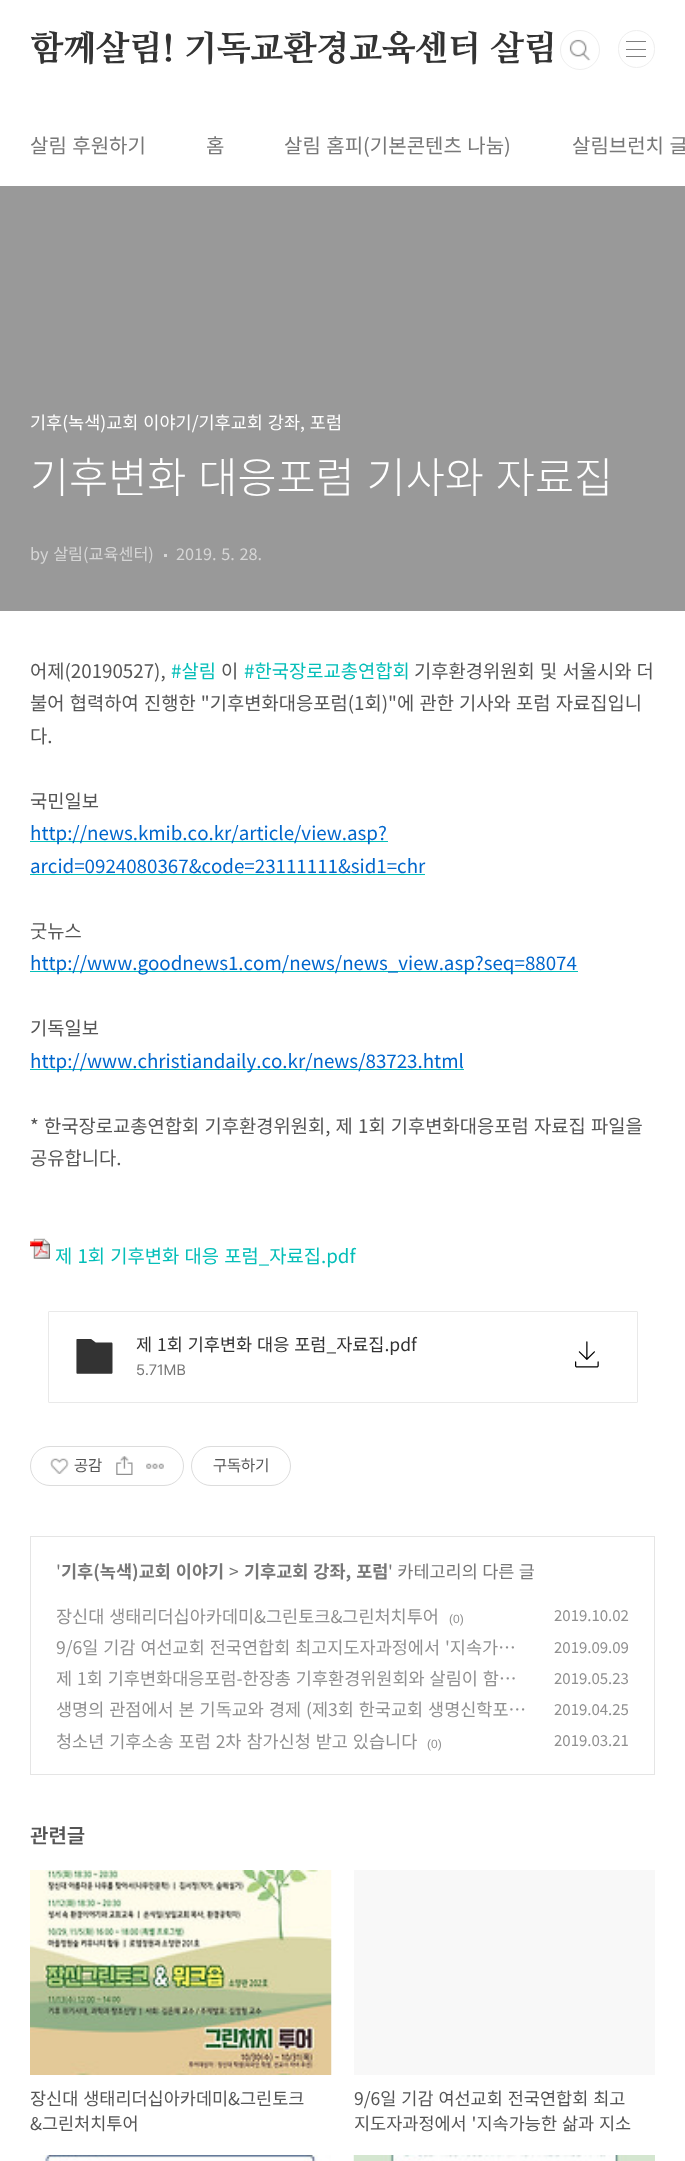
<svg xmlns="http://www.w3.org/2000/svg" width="685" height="2161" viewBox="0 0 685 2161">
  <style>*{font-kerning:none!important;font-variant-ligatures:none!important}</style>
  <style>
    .t1 { font: 800 35px NanumMyeongjo; letter-spacing: -0.25px; fill: #333; }
    .t2 { font: 20px Noto Sans KR; fill: #777; }
    .t3 { font: 17.5px Noto Sans KR; fill: #fff; }
    .t4 { font: 300 42.5px Noto Sans KR; fill: #fff; }
    .t5 { font: 16.25px Noto Sans KR; fill: #d6d6d6; }
    .t6 { font: 18.75px Noto Sans KR; fill: #555; }
    .t7 { font: 18.75px Noto Sans KR; fill: #04beb8; }
    .t8 { font: 18.75px Noto Sans KR; fill: #06c; }
    .t9 { font: 17.5px Noto Sans KR; fill: #333; }
    .t10 { font: 15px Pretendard; fill: #777; }
    .t11 { font: 16.25px Pretendard; fill: #555; }
    .t12 { font: 17.5px Noto Sans KR; fill: #777; }
    .t13 { font: bold 17.5px Noto Sans KR; fill: #777; }
    .t14 { font: 17.5px Noto Sans KR; fill: #909090; }
    .t15 { font: 12px Liberation Sans; fill: #909090; }
    .t16 { font: 15px Noto Sans KR; fill: #909090; }
    .t17 { font: 600 20px Noto Sans KR; fill: #555; }
    .t18 { font: 17.5px Noto Sans KR; fill: #555; }
  </style>
  <rect width="100%" height="100%" fill="#fff"/>
  <text x="30" y="60" class="t1">함께살림! 기독교환경교육센터 살림</text>
  <circle cx="580" cy="50" r="18.5" fill="none" stroke="#eee"/>
  <circle cx="580" cy="50" r="20" fill="#fff"/>
  <image x="569" y="39" width="22" height="22" href="images/1.png"/>
  <circle cx="580" cy="50" r="19.5" fill="none" stroke="#eee"/>
  <rect x="618.5" y="30.5" width="36" height="37" rx="18" fill="none" stroke="#eee"/>
  <rect x="626" y="41" width="20" height="1" fill="#7f7f7f"/>
  <rect x="626" y="49" width="20" height="1" fill="#7f7f7f"/>
  <rect x="626" y="56" width="20" height="1" fill="#7f7f7f"/>
  <text x="30" y="153" word-spacing="1" class="t2">살림 후원하기</text>
  <text x="206" y="153" class="t2">홈</text>
  <text x="284" y="153" word-spacing="1" class="t2">살림 홈피(기본콘텐츠 나눔)</text>
  <text x="572" y="153" word-spacing="1" class="t2">살림브런치 글</text>
  <rect x="0" y="186" width="685" height="425" fill="#999"/>
  <text x="30" y="429" word-spacing="1" class="t3">기후(녹색)교회 이야기/기후교회 강좌, 포럼</text>
  <text x="30" y="493" word-spacing="2.5" class="t4">기후변화 대응포럼 기사와 자료집</text>
  <text x="30" y="560" word-spacing="1" class="t5">by 살림(교육센터)</text>
  <rect x="164" y="554" width="3" height="3" fill="#d6d6d6"/>
  <text x="176" y="560" word-spacing="1" class="t5">2019. 5. 28.</text>
  <text x="30" y="678" class="t6">어제(20190527),</text>
  <text x="171" y="678" class="t7">#살림</text>
  <text x="221" y="678" class="t6">이</text>
  <text x="244" y="678" class="t7">#한국장로교총연합회</text>
  <text x="414" y="678" word-spacing="1" class="t6">기후환경위원회 및 서울시와 더</text>
  <text x="30" y="710" word-spacing="1" class="t6">불어 협력하여 진행한 "기후변화대응포럼(1회)"에 관한 기사와 포럼 자료집입니</text>
  <text x="30" y="743" class="t6">다.</text>
  <text x="30" y="808" class="t6">국민일보</text>
  <rect x="30" y="841" width="358" height="1" fill="#04beb8"/>
  <text x="30" y="840" class="t8">http://news.kmib.co.kr/article/view.asp?</text>
  <text x="30" y="873" class="t8">arcid=0924080367&amp;code=23111111&amp;sid1=chr</text>
  <rect x="30" y="874" width="395" height="1" fill="#04beb8"/>
  <text x="30" y="938" class="t6">굿뉴스</text>
  <rect x="30" y="971" width="548" height="1" fill="#04beb8"/>
  <text x="30" y="970" class="t8">http://www.goodnews1.com/news/news_view.asp?seq=88074</text>
  <text x="30" y="1035" class="t6">기독일보</text>
  <rect x="30" y="1069" width="434" height="1" fill="#04beb8"/>
  <text x="30" y="1068" class="t8">http://www.christiandaily.co.kr/news/83723.html</text>
  <text x="30" y="1133" word-spacing="1" class="t6">* 한국장로교총연합회 기후환경위원회, 제 1회 기후변화대응포럼 자료집 파일을</text>
  <text x="30" y="1165" class="t6">공유합니다.</text>
  <image x="30" y="1238" width="20" height="21" href="images/2.png"/>
  <text x="55" y="1263" word-spacing="1" class="t7">제 1회 기후변화 대응 포럼_자료집.pdf</text>
  <rect x="48.5" y="1311.5" width="589" height="91" rx="0.5" fill="none" stroke="#e9e9e9"/>
  <image x="76" y="1339" width="37" height="35" href="images/3.png"/>
  <text x="136" y="1351" word-spacing="1" class="t9">제 1회 기후변화 대응 포럼_자료집.pdf</text>
  <text x="136" y="1375" class="t10">5.71MB</text>
  <image x="575" y="1341" width="24" height="27" href="images/4.png"/>
  <rect x="30.5" y="1446.5" width="153" height="39" rx="19.5" fill="none" stroke="#dcdcdc"/>
  <image x="50" y="1458" width="19" height="16" href="images/5.png"/>
  <text x="74" y="1471" class="t11">공감</text>
  <image x="116" y="1456" width="17" height="19" href="images/6.png"/>
  <image x="146" y="1463" width="18" height="6" href="images/7.png"/>
  <rect x="191.5" y="1446.5" width="99" height="39" rx="19.5" fill="none" stroke="#dcdcdc"/>
  <text x="213" y="1471" class="t11">구독하기</text>
  <rect x="30.5" y="1536.5" width="624" height="238" fill="none" stroke="#e5e5e5"/>
  <text x="56" y="1578" class="t12">'</text>
  <text x="61" y="1578" word-spacing="1" class="t13">기후(녹색)교회 이야기</text>
  <text x="229" y="1578" class="t12">&gt;</text>
  <text x="244" y="1578" word-spacing="1" class="t13">기후교회 강좌, 포럼</text>
  <text x="388" y="1578" word-spacing="0.5" class="t12">' 카테고리의 다른 글</text>
  <text x="56" y="1623" word-spacing="1" class="t14">장신대 생태리더십아카데미&amp;그린토크&amp;그린처치투어</text>
  <text x="449" y="1623" class="t15">(0)</text>
  <text x="554" y="1621" class="t16">2019.10.02</text>
  <text x="56" y="1654" word-spacing="1" class="t14">9/6일 기감 여선교회 전국연합회 최고지도자과정에서 '지속가…</text>
  <text x="554" y="1653" class="t16">2019.09.09</text>
  <text x="56" y="1685" word-spacing="1" class="t14">제 1회 기후변화대응포럼-한장총 기후환경위원회와 살림이 함…</text>
  <text x="554" y="1684" class="t16">2019.05.23</text>
  <text x="56" y="1716" word-spacing="1" class="t14">생명의 관점에서 본 기독교와 경제 (제3회 한국교회 생명신학포…</text>
  <text x="554" y="1715" class="t16">2019.04.25</text>
  <text x="56" y="1748" word-spacing="1" class="t14">청소년 기후소송 포럼 2차 참가신청 받고 있습니다</text>
  <text x="427" y="1748" class="t15">(0)</text>
  <text x="554" y="1746" class="t16">2019.03.21</text>
  <text x="30" y="1843" class="t17">관련글</text>
  <image x="30" y="1870" width="302" height="205" href="images/8.png"/>
  <text x="30" y="2105" word-spacing="1" class="t18">장신대 생태리더십아카데미&amp;그린토크</text>
  <text x="30" y="2130" class="t18">&amp;그린처치투어</text>
  <rect x="354" y="1870" width="301" height="205" fill="#f8f8f8"/>
  <text x="354" y="2105" word-spacing="1" class="t18">9/6일 기감 여선교회 전국연합회 최고</text>
  <text x="354" y="2130" word-spacing="1" class="t18">지도자과정에서 '지속가능한 삶과 지소</text>
  <image x="30" y="2155" width="301" height="6" href="images/9.png"/>
  <image x="353" y="2155" width="302" height="6" href="images/10.png"/>
</svg>
